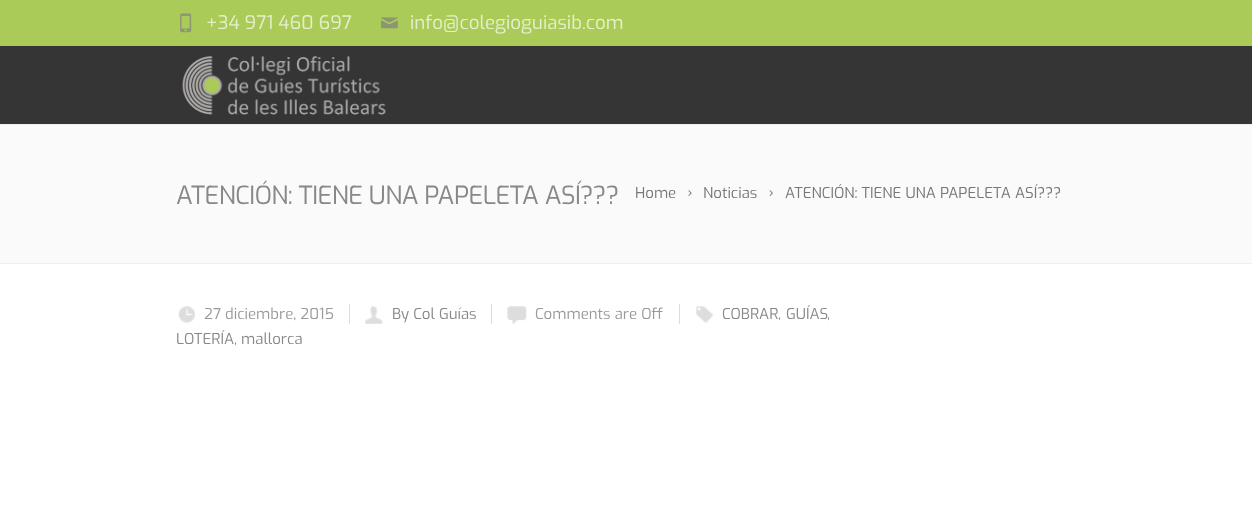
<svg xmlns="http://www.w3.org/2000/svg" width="1252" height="532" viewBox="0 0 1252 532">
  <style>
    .t1 { font: 18.75px Exo; fill: #e6efcd; }
    .t2 { font: 25px Exo; letter-spacing: -0.5px; fill: #888; }
    .t3 { font: 15px Exo; fill: #777; }
    .t4 { font: 15px Exo; fill: #999; }
    .t5 { font: 15px Exo; fill: #888; }
  </style>
  <rect width="100%" height="100%" fill="#fff"/>
  <rect x="-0.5" y="-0.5" width="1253" height="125" fill="none" stroke="#eee"/>
  <rect x="0" y="0" width="1252" height="46" fill="#abcb58"/>
  <image x="180" y="13" width="12" height="20" href="images/1.png"/>
  <text x="206" y="29" class="t1">+34 971 460 697</text>
  <image x="381" y="17" width="17" height="12" href="images/2.png"/>
  <text x="410" y="29" class="t1">info@colegioguiasib.com</text>
  <rect x="0" y="46" width="1252" height="78" fill="#353535"/>
  <image x="182" y="56" width="204" height="59" href="images/3.png"/>
  <rect x="0" y="125" width="1252" height="138" fill="#fafafa"/>
  <rect x="0" y="263" width="1252" height="1" fill="#eee"/>
  <text x="176" y="204" class="t2">ATENCIÓN: TIENE UNA PAPELETA ASÍ???</text>
  <text x="635" y="198" class="t3">Home</text>
  <image x="688" y="190" width="4" height="6" href="images/4.png"/>
  <text x="703" y="198" class="t3">Noticias</text>
  <image x="769" y="190" width="4" height="6" href="images/5.png"/>
  <text x="785" y="198" class="t3">ATENCIÓN: TIENE UNA PAPELETA ASÍ???</text>
  <image x="178" y="306" width="17" height="17" href="images/6.png"/>
  <text x="204" y="319" class="t4">27 diciembre, 2015</text>
  <rect x="349" y="304" width="1" height="20" fill="#ddd"/>
  <image x="365" y="306" width="18" height="18" href="images/7.png"/>
  <text x="392" y="319" class="t5">By Col Guías</text>
  <rect x="491" y="304" width="1" height="20" fill="#ddd"/>
  <image x="507" y="306" width="20" height="18" href="images/8.png"/>
  <text x="535" y="319" class="t4">Comments are Off</text>
  <rect x="679" y="304" width="1" height="20" fill="#ddd"/>
  <image x="696" y="306" width="17" height="17" href="images/9.png"/>
  <text x="722" y="319" class="t5">COBRAR</text>
  <text x="778" y="319" class="t4">,</text>
  <text x="786" y="319" class="t5">GUÍAS</text>
  <text x="827" y="319" class="t4">,</text>
  <text x="176" y="344" class="t5">LOTERÍA</text>
  <text x="234" y="344" class="t4">,</text>
  <text x="241" y="344" class="t5">mallorca</text>
</svg>
